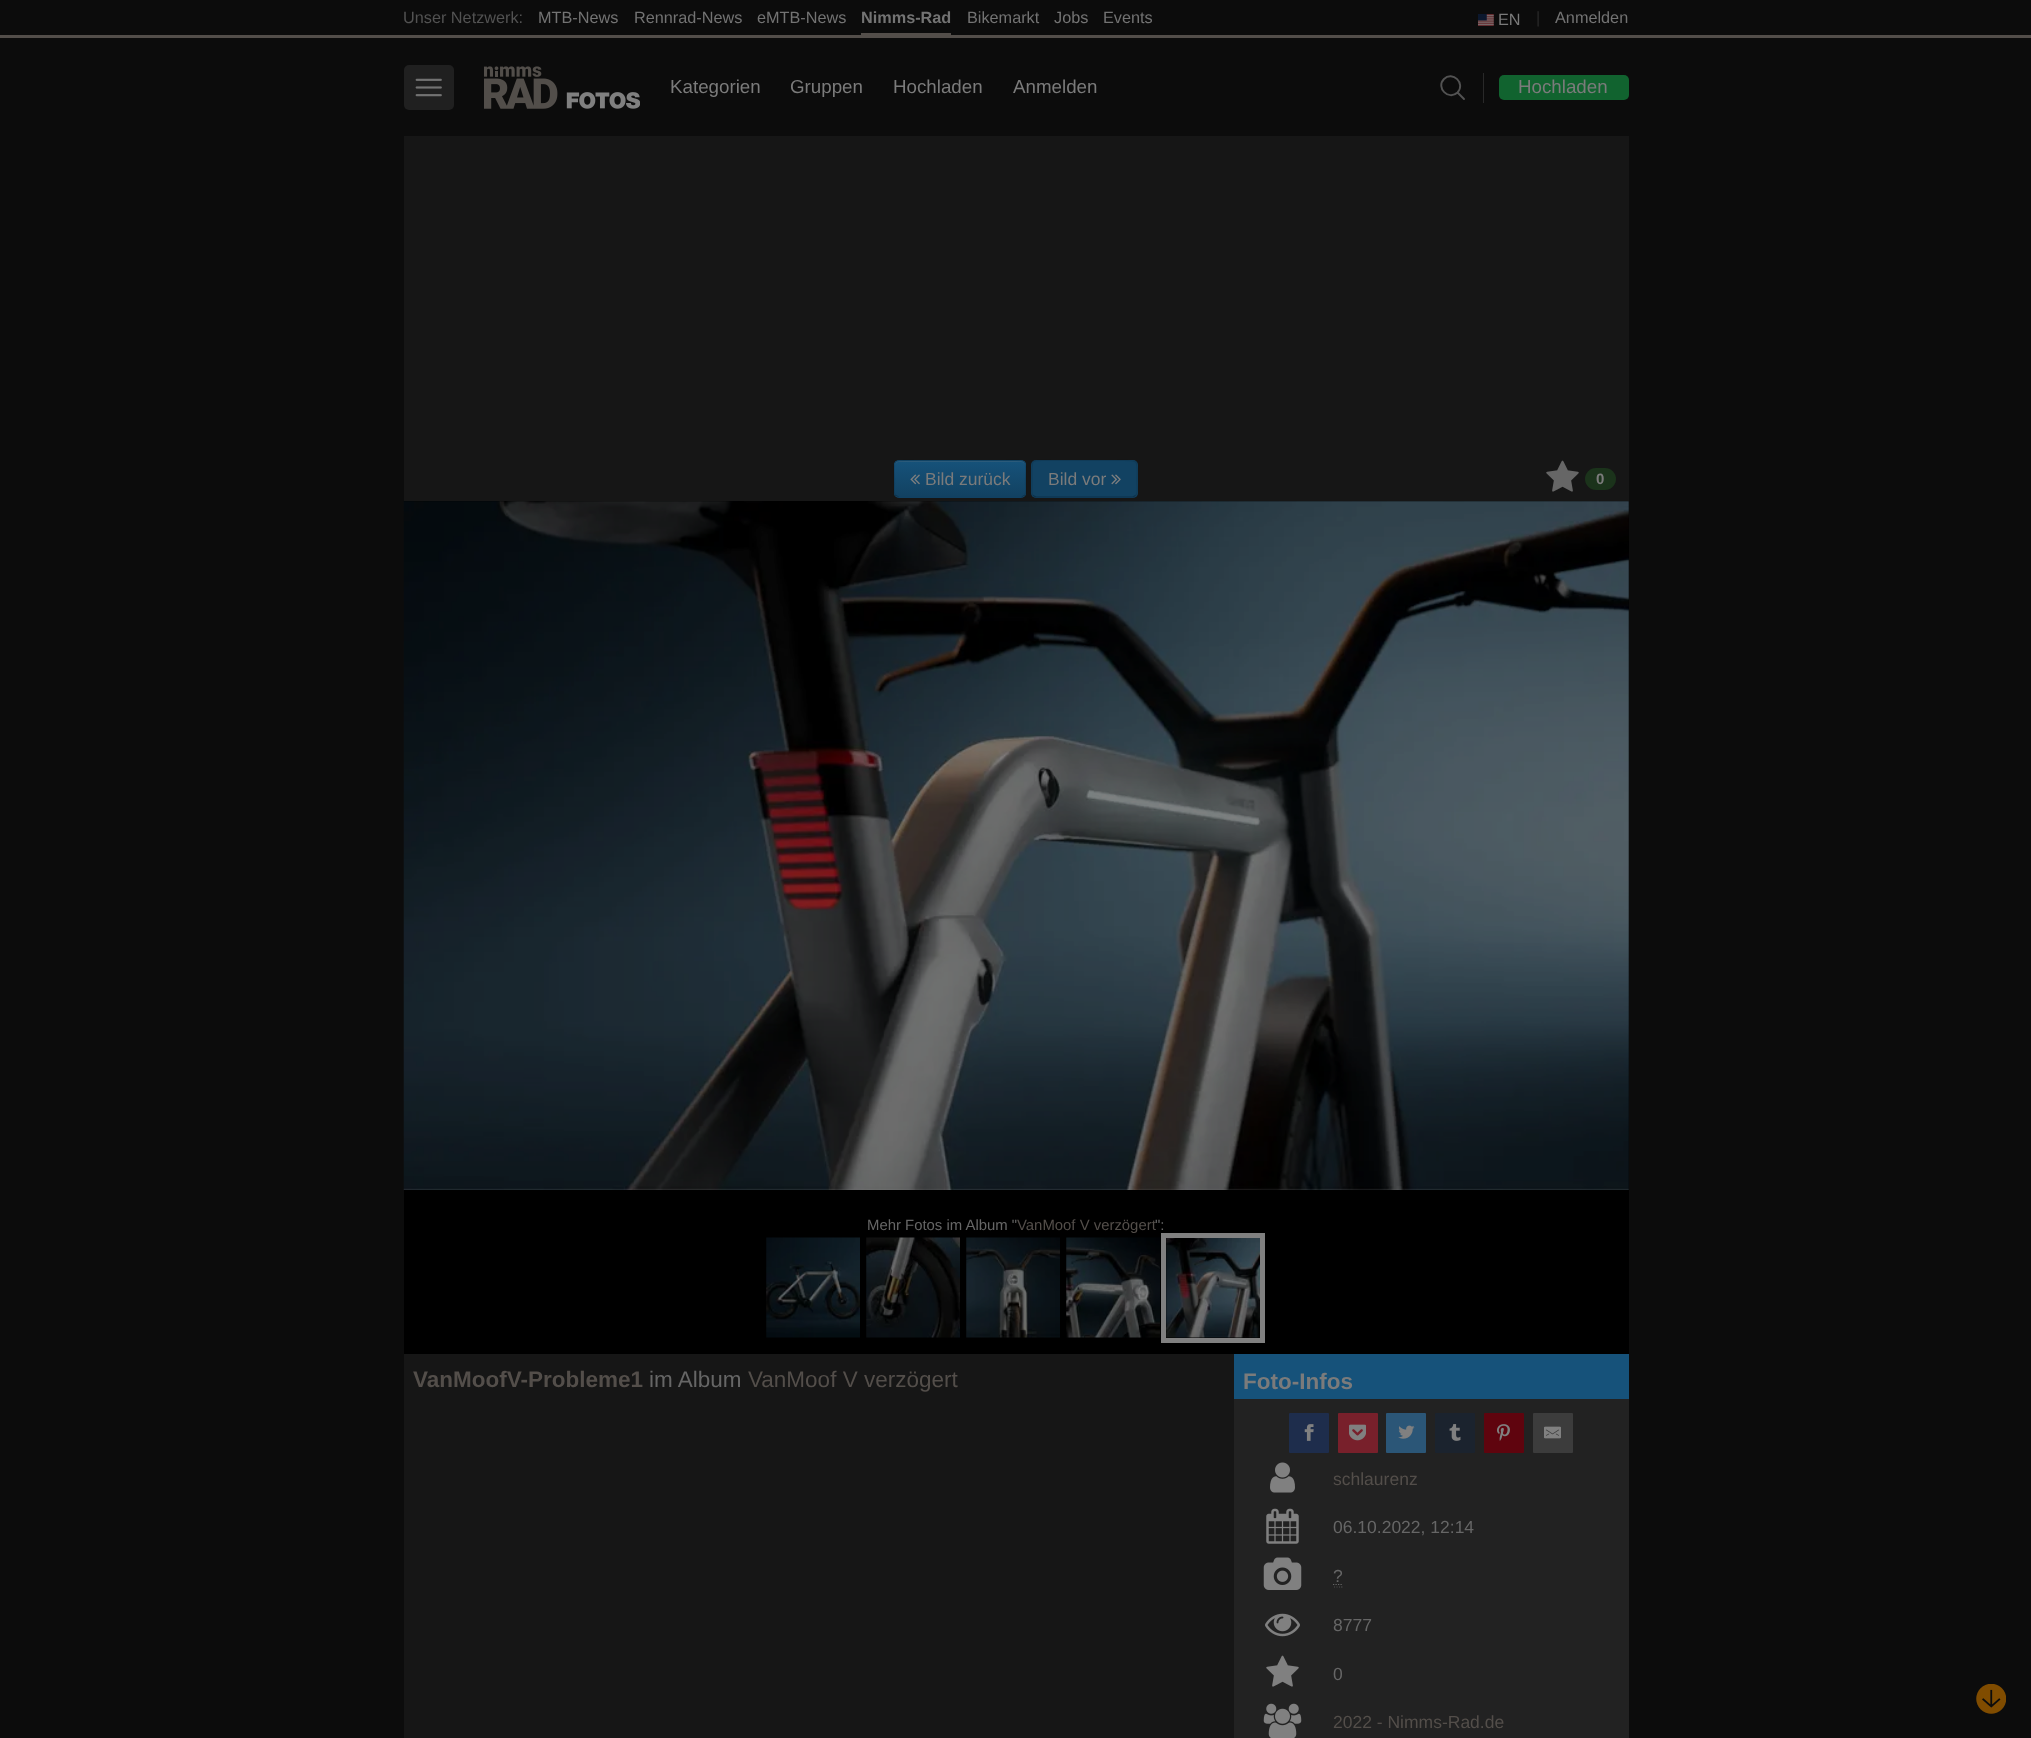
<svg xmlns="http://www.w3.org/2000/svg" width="2031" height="1738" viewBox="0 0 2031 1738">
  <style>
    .t1 { font: 16.25px Liberation Sans; fill: #525252; }
    .t2 { font: 16.25px Liberation Sans; fill: #737373; }
    .t3 { font: bold 16.25px Liberation Sans; fill: #737373; }
    .t4 { font: 16.25px Liberation Sans; fill: #7b7b7b; }
    .t5 { font: 16.25px Liberation Sans; fill: #292929; }
    .t6 { font: 18.75px Liberation Sans; fill: #7b7b7b; }
    .t7 { font: 17.5px Liberation Sans; fill: #7b7b7b; }
    .t8 { font: bold 15px Liberation Sans; fill: #7b7b7b; }
    .t9 { font: 14.9px Liberation Sans; fill: #666; }
    .t10 { font: 14.9px Liberation Sans; fill: #534e4a; }
    .t11 { font: bold 22.5px Liberation Sans; fill: #534e4a; }
    .t12 { font: 22.5px Liberation Sans; fill: #666; }
    .t13 { font: 22.5px Liberation Sans; fill: #534e4a; }
    .t14 { font: bold 22.5px Liberation Sans; fill: #7b7b7b; }
    .t15 { font: 17.5px Liberation Sans; fill: #534e4a; }
    .t16 { font: 17.5px Liberation Sans; fill: #666; }
  </style>
  <defs>
    <clipPath id="clip1"><rect x="894" y="460" width="132" height="38" rx="5"/></clipPath>
    <linearGradient id="g1" gradientUnits="userSpaceOnUse" x1="960" y1="461" x2="960" y2="496"><stop offset="0" stop-color="#16527a"/><stop offset="1" stop-color="#124262"/></linearGradient>
  </defs>
  <rect width="100%" height="100%" fill="#0c0c0c"/>
  <rect x="0" y="35" width="2031" height="3" fill="#534e4a"/>
  <text x="403" y="23" class="t1">Unser Netzwerk:</text>
  <text x="538" y="23" class="t2">MTB-News</text>
  <text x="634" y="23" class="t2">Rennrad-News</text>
  <text x="757" y="23" class="t2">eMTB-News</text>
  <rect x="861" y="33" width="90" height="2" fill="#534e4a"/>
  <text x="861" y="23" class="t3">Nimms-Rad</text>
  <text x="967" y="23" class="t2">Bikemarkt</text>
  <text x="1054" y="23" class="t2">Jobs</text>
  <text x="1103" y="23" class="t2">Events</text>
  <image x="1478" y="14" width="16" height="12" href="images/1.png"/>
  <text x="1498" y="25" class="t4">EN</text>
  <text x="1536" y="23" class="t5">|</text>
  <text x="1555" y="23" class="t2">Anmelden</text>
  <rect x="404" y="65" width="50" height="45" rx="5" fill="#202020"/>
  <image x="415" y="78" width="27" height="19" href="images/2.png"/>
  <image x="484" y="66" width="156" height="43" href="images/3.png"/>
  <text x="670" y="93" class="t6">Kategorien</text>
  <text x="790" y="93" class="t6">Gruppen</text>
  <text x="893" y="93" class="t6">Hochladen</text>
  <text x="1013" y="93" class="t6">Anmelden</text>
  <rect x="1483" y="73" width="1" height="30" fill="#292929"/>
  <path d="M1464 99L1457.5 92.5M1457.5 92.5C1466 83.5 1452.5 70.5 1444 79C1435.5 87.5 1448.5 101 1457.5 92.5Z" fill="none" stroke="#525252" stroke-width="1.9" stroke-linecap="round" stroke-linejoin="round"/>
  <rect x="1499" y="75" width="130" height="25" rx="5" fill="#11632f"/>
  <text x="1518" y="93" class="t6">Hochladen</text>
  <rect x="404" y="136" width="1225" height="1602" fill="#161616"/>
  <rect x="894" y="460" width="132" height="38" rx="5" fill="#144b70"/>
  <g clip-path="url(#clip1)">
    <rect x="894" y="461" width="132" height="35" fill="url(#g1)"/>
  </g>
  <path d="M899 462H1021C1023 462 1025 464 1025 466V465C1025 463 1023 461 1021 461H899C897 461 895 463 895 465V466C895 464 897 462 899 462Z" fill="#2b5b7b"/>
  <path d="M1024.5 495.5L1021.5 497H919H899L895.5 495.5" fill="none" stroke="#00000040" stroke-width="1.2"/>
  <path d="M895.5 495.5C893 493 894.5 486.5 894.5 483.5C894.5 456 890 460.5 919 460.5H1001C1030 460.5 1025.5 456 1025.5 483.5C1025.5 486.5 1027 493 1024.5 495.5" fill="none" stroke="#0000001a" stroke-width="1.2"/>
  <image x="910" y="474" width="10" height="11" href="images/4.png"/>
  <text x="925" y="485" class="t7">Bild zurück</text>
  <rect x="1031" y="460" width="107" height="38" rx="5" fill="#124262"/>
  <path d="M1135.5 495.5L1133 497H1036L1033 495.5" fill="none" stroke="#0d314a" stroke-width="1.2"/>
  <path d="M1033 495.5C1031 493.5 1032 490.5 1032 488V479C1032 457 1029 460.5 1052.5 460.5H1116.5C1141.5 460.5 1137 458 1137 483.5C1137 486.5 1138.5 493 1135.5 495.5" fill="none" stroke="#0000001a" stroke-width="1.2"/>
  <text x="1048" y="485" class="t7">Bild vor</text>
  <image x="1111" y="474" width="10" height="11" href="images/5.png"/>
  <image x="1546" y="460" width="33" height="32" href="images/6.png"/>
  <rect x="1585" y="468" width="31" height="22" rx="11" fill="#1b331b"/>
  <text x="1596" y="484" class="t8">0</text>
  <rect x="404" y="501" width="1225" height="853" fill="#000"/>
  <image x="403" y="501" width="1226" height="689" href="images/7.png"/>
  <text x="867" y="1230" class="t9">Mehr Fotos im Album "</text>
  <text x="1017" y="1230" class="t10">VanMoof V verzögert</text>
  <text x="1155" y="1230" class="t9">":</text>
  <image x="766" y="1237" width="94" height="101" href="images/8.png"/>
  <image x="866" y="1237" width="94" height="101" href="images/9.png"/>
  <image x="966" y="1237" width="94" height="101" href="images/10.png"/>
  <image x="1066" y="1237" width="94" height="101" href="images/11.png"/>
  <image x="1166" y="1238" width="94" height="100" href="images/12.png"/>
  <rect x="1163.5" y="1235.5" width="99" height="105" fill="none" stroke="#808080" stroke-width="5"/>
  <text x="413" y="1387" class="t11">VanMoofV-Probleme1</text>
  <text x="649" y="1387" class="t12">im Album</text>
  <text x="748" y="1387" class="t13">VanMoof V verzögert</text>
  <rect x="1234" y="1399" width="395" height="339" fill="#222"/>
  <rect x="1234" y="1354" width="395" height="45" fill="#16527a"/>
  <text x="1243" y="1389" class="t14">Foto-Infos</text>
  <rect x="1289" y="1413" width="40" height="40" rx="1" fill="#1e2d4c"/>
  <image x="1304" y="1424" width="10" height="17" href="images/13.png"/>
  <rect x="1338" y="1413" width="40" height="40" rx="1" fill="#78202b"/>
  <image x="1349" y="1424" width="17" height="17" href="images/14.png"/>
  <rect x="1386" y="1413" width="40" height="40" rx="1" fill="#2b5677"/>
  <image x="1398" y="1425" width="17" height="14" href="images/15.png"/>
  <rect x="1435" y="1413" width="40" height="40" rx="1" fill="#1b232e"/>
  <image x="1449" y="1424" width="12" height="17" href="images/16.png"/>
  <rect x="1484" y="1413" width="40" height="40" rx="1" fill="#5f040e"/>
  <image x="1497" y="1424" width="13" height="17" href="images/17.png"/>
  <rect x="1533" y="1413" width="40" height="40" rx="1" fill="#3c3c3c"/>
  <image x="1544" y="1426" width="17" height="13" href="images/18.png"/>
  <image x="1270" y="1462" width="25" height="31" href="images/19.png"/>
  <text x="1333" y="1485" class="t15">schlaurenz</text>
  <image x="1266" y="1508" width="33" height="36" href="images/20.png"/>
  <text x="1333" y="1533" class="t16">06.10.2022, 12:14</text>
  <image x="1263" y="1557" width="39" height="33" href="images/21.png"/>
  <text x="1333" y="1582" class="t16">?</text>
  <path d="M1334 1587H1335M1336.5 1587H1337.5M1339 1587H1340M1341 1587H1342.5" fill="none" stroke="#4d4d4d" stroke-width="1.2"/>
  <path d="M1333 1584.5H1343" fill="none" stroke="#666" stroke-width="1.2" stroke-dasharray="1.25 1.25"/>
  <image x="1265" y="1613" width="35" height="24" href="images/22.png"/>
  <text x="1333" y="1631" class="t16">8777</text>
  <image x="1266" y="1655" width="33" height="32" href="images/23.png"/>
  <text x="1333" y="1680" class="t16">0</text>
  <image x="1263" y="1703" width="39" height="35" href="images/24.png"/>
  <text x="1333" y="1728" class="t15">2022 - Nimms-Rad.de</text>
  <image x="1976" y="1684" width="30" height="30" href="images/25.png"/>
</svg>
